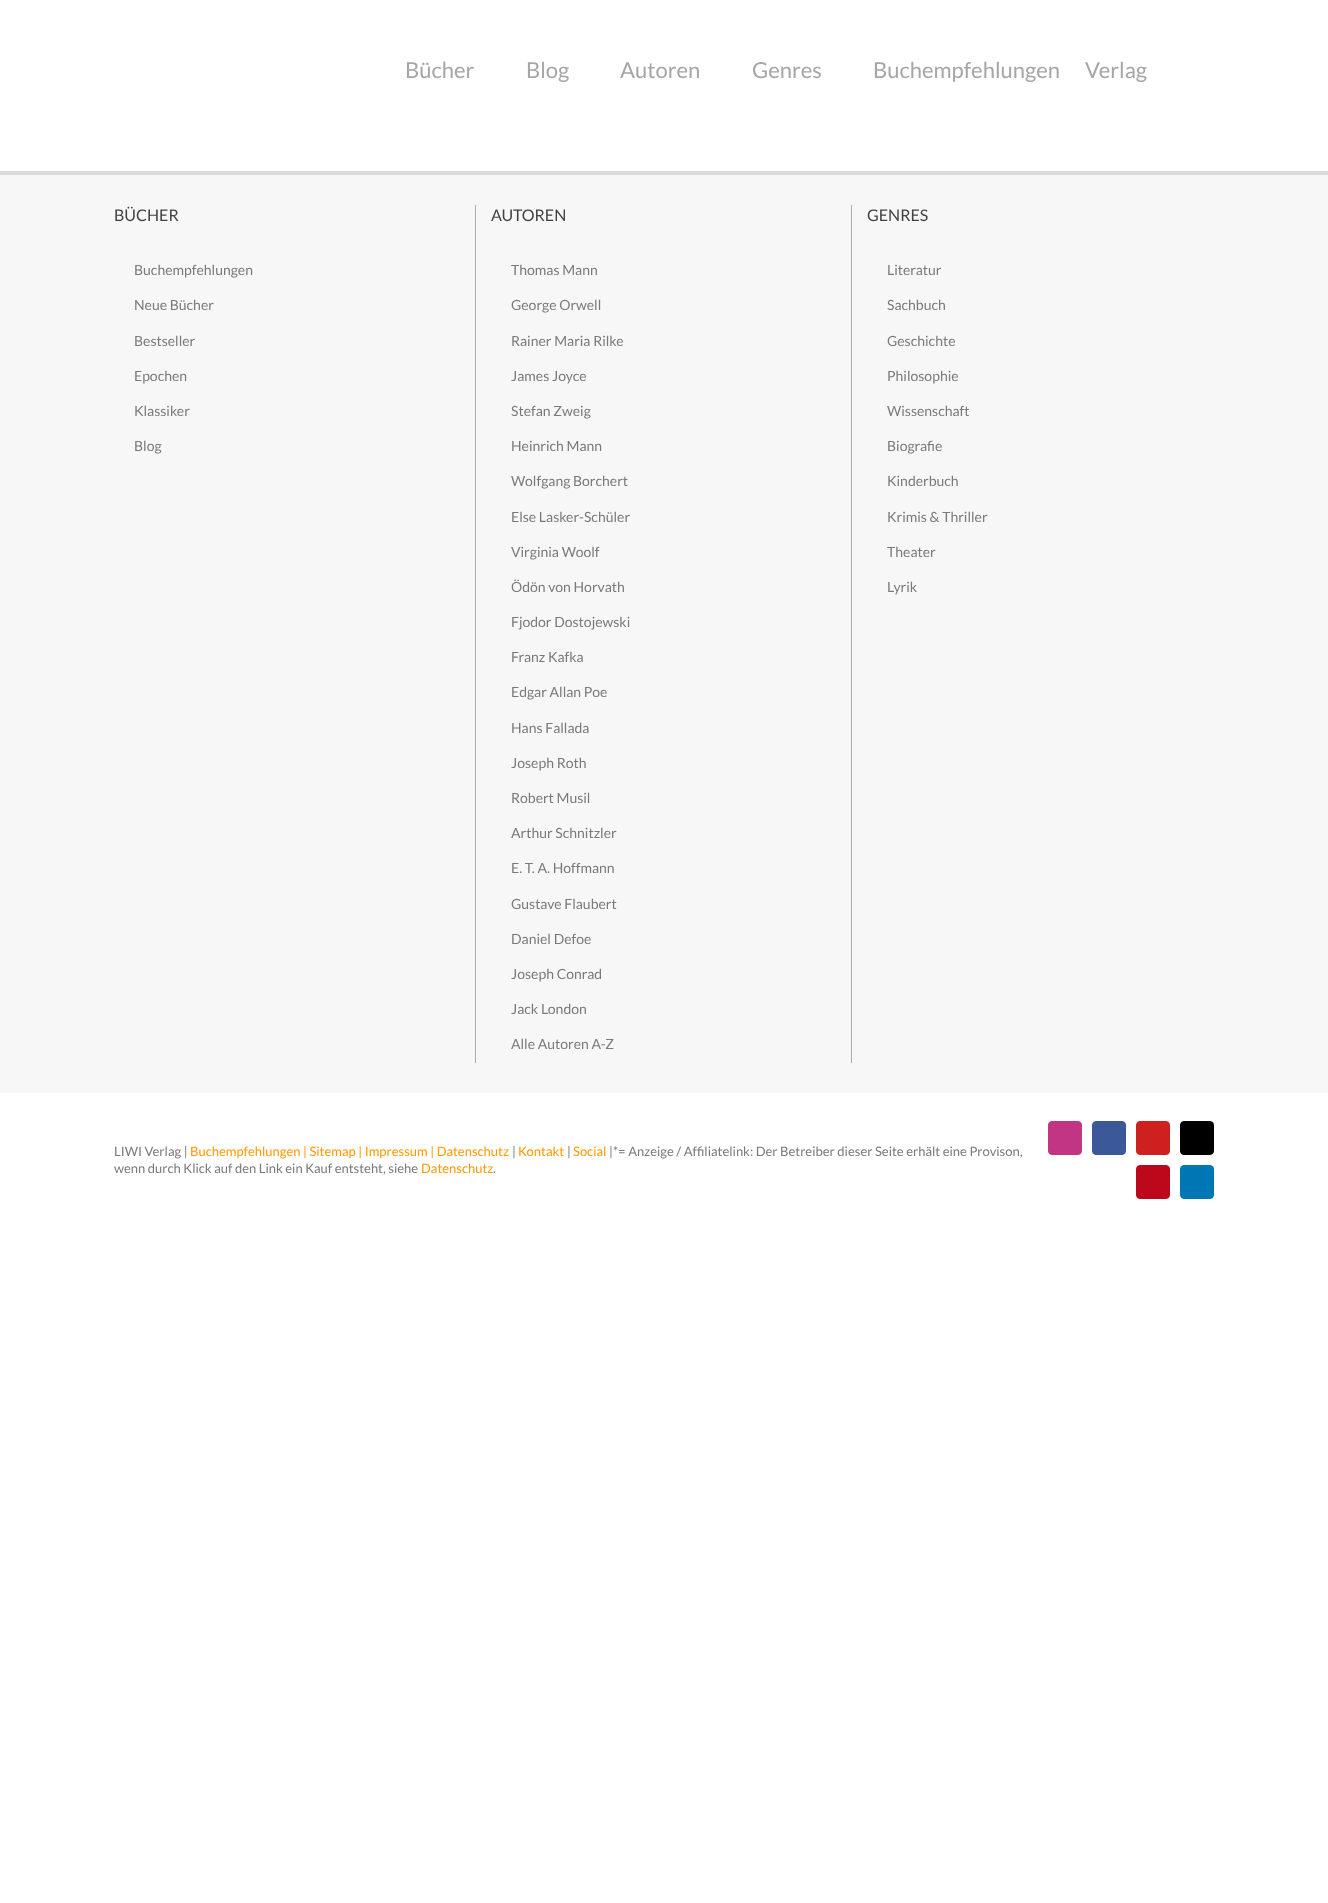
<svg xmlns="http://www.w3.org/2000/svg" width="1328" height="1903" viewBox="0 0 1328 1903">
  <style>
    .t1 { font: 22px Lato; fill: #a6a6a6; }
    .t2 { font: 16px Lato; fill: #424242; }
    .t3 { font: 14px Lato; fill: #7a7a7a; }
    .t4 { font: 13px Lato; fill: #7a7a7a; }
    .t5 { font: 13px Lato; fill: #f90; }
  </style>
  <rect width="100%" height="100%" fill="#fff"/>
  <text x="405" y="78" class="t1">Bücher</text>
  <text x="526" y="78" class="t1">Blog</text>
  <text x="620" y="78" class="t1">Autoren</text>
  <text x="752" y="78" class="t1">Genres</text>
  <text x="873" y="78" class="t1">Buchempfehlungen</text>
  <text x="1085" y="78" class="t1">Verlag</text>
  <rect x="0" y="175" width="1328" height="918" fill="#f7f7f7"/>
  <rect x="0" y="171" width="1328" height="4" fill="#dbdbdb"/>
  <rect x="475" y="205" width="1" height="858" fill="#adadad"/>
  <text x="114" y="221" class="t2">BÜCHER</text>
  <text x="134" y="275" class="t3">Buchempfehlungen</text>
  <text x="134" y="310" class="t3">Neue Bücher</text>
  <text x="134" y="346" class="t3">Bestseller</text>
  <text x="134" y="381" class="t3">Epochen</text>
  <text x="134" y="416" class="t3">Klassiker</text>
  <text x="134" y="451" class="t3">Blog</text>
  <rect x="851" y="205" width="1" height="858" fill="#adadad"/>
  <text x="491" y="221" class="t2">AUTOREN</text>
  <text x="511" y="275" class="t3">Thomas Mann</text>
  <text x="511" y="310" class="t3">George Orwell</text>
  <text x="511" y="346" class="t3">Rainer Maria Rilke</text>
  <text x="511" y="381" class="t3">James Joyce</text>
  <text x="511" y="416" class="t3">Stefan Zweig</text>
  <text x="511" y="451" class="t3">Heinrich Mann</text>
  <text x="511" y="486" class="t3">Wolfgang Borchert</text>
  <text x="511" y="522" class="t3">Else Lasker-Schüler</text>
  <text x="511" y="557" class="t3">Virginia Woolf</text>
  <text x="511" y="592" class="t3">Ödön von Horvath</text>
  <text x="511" y="627" class="t3">Fjodor Dostojewski</text>
  <text x="511" y="662" class="t3">Franz Kafka</text>
  <text x="511" y="697" class="t3">Edgar Allan Poe</text>
  <text x="511" y="733" class="t3">Hans Fallada</text>
  <text x="511" y="768" class="t3">Joseph Roth</text>
  <text x="511" y="803" class="t3">Robert Musil</text>
  <text x="511" y="838" class="t3">Arthur Schnitzler</text>
  <text x="511" y="873" class="t3">E. T. A. Hoffmann</text>
  <text x="511" y="909" class="t3">Gustave Flaubert</text>
  <text x="511" y="944" class="t3">Daniel Defoe</text>
  <text x="511" y="979" class="t3">Joseph Conrad</text>
  <text x="511" y="1014" class="t3">Jack London</text>
  <text x="511" y="1049" class="t3">Alle Autoren A-Z</text>
  <text x="867" y="221" class="t2">GENRES</text>
  <text x="887" y="275" class="t3">Literatur</text>
  <text x="887" y="310" class="t3">Sachbuch</text>
  <text x="887" y="346" class="t3">Geschichte</text>
  <text x="887" y="381" class="t3">Philosophie</text>
  <text x="887" y="416" class="t3">Wissenschaft</text>
  <text x="887" y="451" class="t3">Biografie</text>
  <text x="887" y="486" class="t3">Kinderbuch</text>
  <text x="887" y="522" class="t3">Krimis &amp; Thriller</text>
  <text x="887" y="557" class="t3">Theater</text>
  <text x="887" y="592" class="t3">Lyrik</text>
  <text x="114" y="1156" class="t4">LIWI Verlag |</text>
  <text x="190" y="1156" class="t5">Buchempfehlungen | Sitemap | Impressum | Datenschutz</text>
  <text x="512" y="1156" class="t4">|</text>
  <text x="518" y="1156" class="t5">Kontakt</text>
  <text x="567" y="1156" class="t4">|</text>
  <text x="573" y="1156" class="t5">Social</text>
  <text x="609" y="1156" class="t4">|*= Anzeige / Affiliatelink: Der Betreiber dieser Seite erhält eine Provison,</text>
  <text x="114" y="1173" class="t4">wenn durch Klick auf den Link ein Kauf entsteht, siehe</text>
  <text x="421" y="1173" class="t5">Datenschutz</text>
  <text x="493" y="1173" class="t4">.</text>
  <rect x="1048.5" y="1121.5" width="33" height="33" rx="3.5" fill="#c13584" stroke="#c13584"/>
  <rect x="1092.5" y="1121.5" width="33" height="33" rx="3.5" fill="#3b5998" stroke="#3b5998"/>
  <rect x="1136.5" y="1121.5" width="33" height="33" rx="3.5" fill="#cd201f" stroke="#cd201f"/>
  <rect x="1180.5" y="1121.5" width="33" height="33" rx="3.5" fill="#000" stroke="#000"/>
  <rect x="1136.5" y="1165.5" width="33" height="33" rx="3.5" fill="#bd081c" stroke="#bd081c"/>
  <rect x="1180.5" y="1165.5" width="33" height="33" rx="3.5" fill="#0077b5" stroke="#0077b5"/>
</svg>
